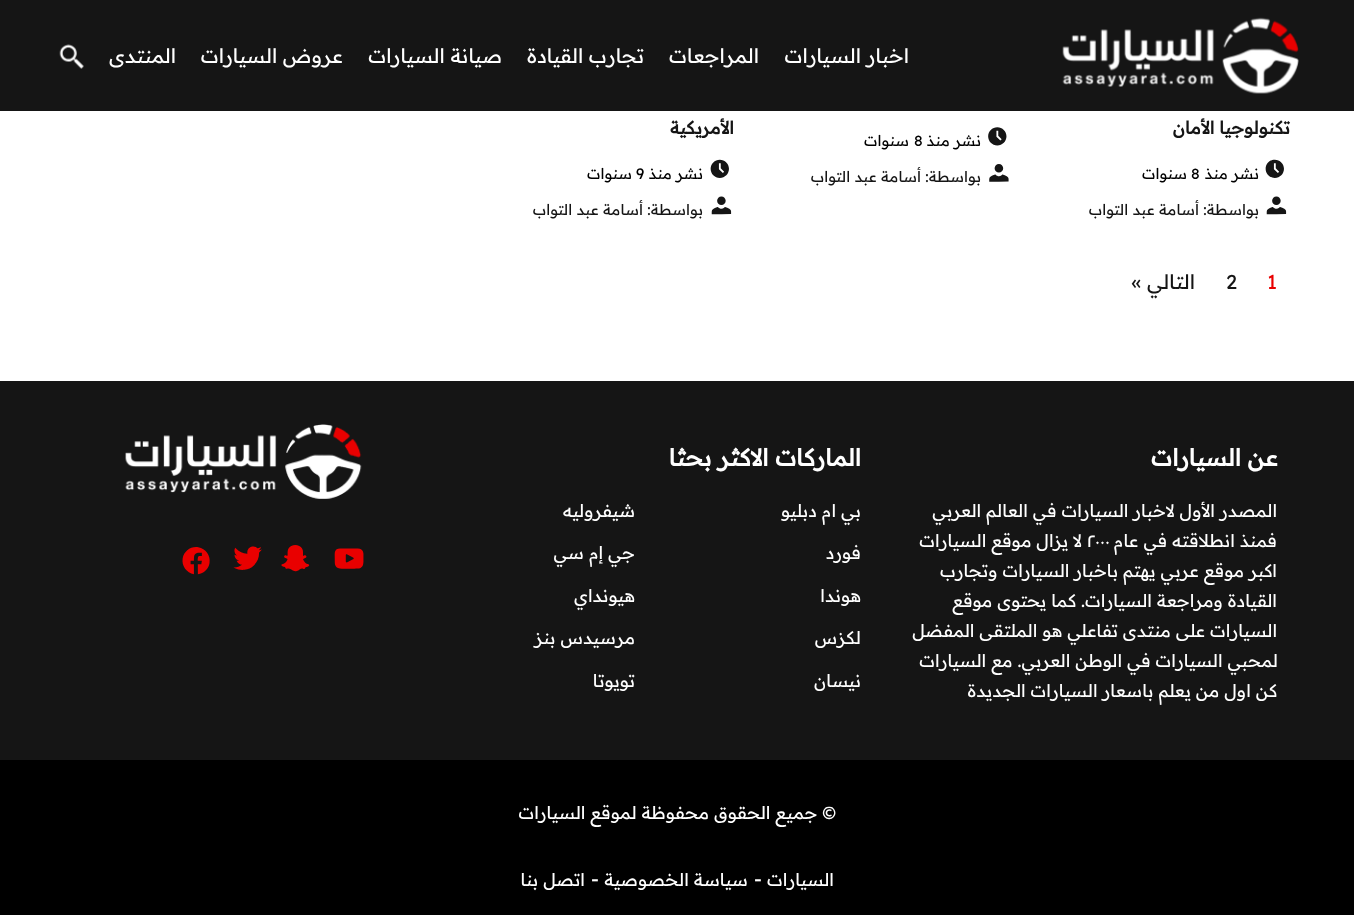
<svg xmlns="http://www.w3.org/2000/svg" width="1354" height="915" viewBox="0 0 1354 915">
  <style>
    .t1 { font: 20px Readex Pro; direction: rtl; fill: #fff; }
    .t2 { font: bold 17.5px Readex Pro; direction: rtl; fill: #151515; }
    .t3 { font: 15px Readex Pro; direction: rtl; fill: #000; }
    .t4 { font: 15px Readex Pro; fill: #000; }
    .t5 { font: 15px Readex Pro; direction: rtl; fill: #151515; }
    .t6 { font: 20px Readex Pro; fill: #e90000; }
    .t7 { font: 20px Readex Pro; fill: #151515; }
    .t8 { font: 20px Readex Pro; direction: rtl; fill: #151515; }
    .t9 { font: bold 23.5px Readex Pro; direction: rtl; fill: #fff; }
    .t10 { font: 17.5px Readex Pro; direction: rtl; fill: #fff; }
    .t11 { font: 17.5px Readex Pro; fill: #fff; }
    .t12 { font: 20px Readex Pro; fill: #fff; }
  </style>
  <rect width="100%" height="100%" fill="#fff"/>
  <rect x="0" y="0" width="1354" height="111" fill="#151515"/>
  <image x="1062" y="17" width="237" height="77" href="images/1.png"/>
  <text x="909" y="63" class="t1">اخبار السيارات</text>
  <text x="759" y="63" class="t1">المراجعات</text>
  <text x="644" y="63" class="t1">تجارب القيادة</text>
  <text x="502" y="63" class="t1">صيانة السيارات</text>
  <text x="343" y="63" class="t1">عروض السيارات</text>
  <text x="176" y="63" class="t1">المنتدى</text>
  <image x="59" y="44" width="25" height="25" href="images/2.png"/>
  <text x="1290" y="134" class="t2">تكنولوجيا الأمان</text>
  <image x="1265" y="159" width="19" height="19" href="images/3.png"/>
  <text x="1259" y="179" class="t3">نشر منذ</text>
  <text x="1191" y="179" class="t4">8</text>
  <text x="1187" y="179" class="t3">سنوات</text>
  <image x="1266" y="196" width="21" height="19" href="images/4.png"/>
  <text x="1259" y="215" class="t5">بواسطة: أسامة عبد التواب</text>
  <image x="988" y="127" width="19" height="19" href="images/5.png"/>
  <text x="981" y="146" class="t3">نشر منذ</text>
  <text x="914" y="146" class="t4">8</text>
  <text x="909" y="146" class="t3">سنوات</text>
  <image x="989" y="164" width="20" height="18" href="images/6.png"/>
  <text x="981" y="182" class="t5">بواسطة: أسامة عبد التواب</text>
  <text x="734" y="134" class="t2">الأمريكية</text>
  <image x="710" y="159" width="19" height="19" href="images/7.png"/>
  <text x="703" y="179" class="t3">نشر منذ</text>
  <text x="636" y="179" class="t4">9</text>
  <text x="632" y="179" class="t3">سنوات</text>
  <image x="711" y="196" width="21" height="19" href="images/8.png"/>
  <text x="703" y="215" class="t5">بواسطة: أسامة عبد التواب</text>
  <text x="1267" y="289" class="t6">1</text>
  <text x="1226" y="289" class="t7">2</text>
  <text x="1195" y="289" class="t8">التالي »</text>
  <rect x="0" y="381" width="1354" height="379" fill="#151515"/>
  <text x="1278" y="466" class="t9">عن السيارات</text>
  <text x="1277" y="517" class="t10">المصدر الأول لاخبار السيارات في العالم العربي</text>
  <text x="1277" y="547" class="t10">فمنذ انطلاقته في عام</text>
  <text x="1087" y="547" class="t11">٢٠٠٠</text>
  <text x="1082" y="547" class="t10">لا يزال موقع السيارات</text>
  <text x="1277" y="577" class="t10">اكبر موقع عربي يهتم باخبار السيارات وتجارب</text>
  <text x="1277" y="607" class="t10">القيادة ومراجعة السيارات. كما يحتوى موقع</text>
  <text x="1277" y="637" class="t10">السيارات على منتدى تفاعلي هو الملتقى المفضل</text>
  <text x="1278" y="667" class="t10">لمحبي السيارات في الوطن العربي. مع السيارات</text>
  <text x="1277" y="697" class="t10">كن اول من يعلم باسعار السيارات الجديدة</text>
  <text x="861" y="466" class="t9">الماركات الاكثر بحثا</text>
  <text x="861" y="517" class="t10">بي ام دبليو</text>
  <text x="635" y="517" class="t10">شيفروليه</text>
  <text x="861" y="559" class="t10">فورد</text>
  <text x="635" y="559" class="t10">جي إم سي</text>
  <text x="861" y="602" class="t10">هوندا</text>
  <text x="635" y="602" class="t10">هيونداي</text>
  <text x="861" y="644" class="t10">لكزس</text>
  <text x="635" y="644" class="t10">مرسيدس بنز</text>
  <text x="861" y="687" class="t10">نيسان</text>
  <text x="635" y="687" class="t10">تويوتا</text>
  <image x="125" y="424" width="237" height="75" href="images/9.png"/>
  <image x="334" y="548" width="30" height="21" href="images/10.png"/>
  <image x="281" y="545" width="29" height="27" href="images/11.png"/>
  <image x="233" y="546" width="29" height="24" href="images/12.png"/>
  <image x="182" y="547" width="28" height="28" href="images/13.png"/>
  <rect x="0" y="760" width="1354" height="155" fill="#000"/>
  <text x="836" y="819" class="t10">© جميع الحقوق محفوظة لموقع السيارات</text>
  <text x="834" y="886" class="t10">السيارات</text>
  <text x="754" y="886" class="t12">-</text>
  <text x="748" y="886" class="t10">سياسة الخصوصية</text>
  <text x="591" y="886" class="t12">-</text>
  <text x="585" y="886" class="t10">اتصل بنا</text>
</svg>
